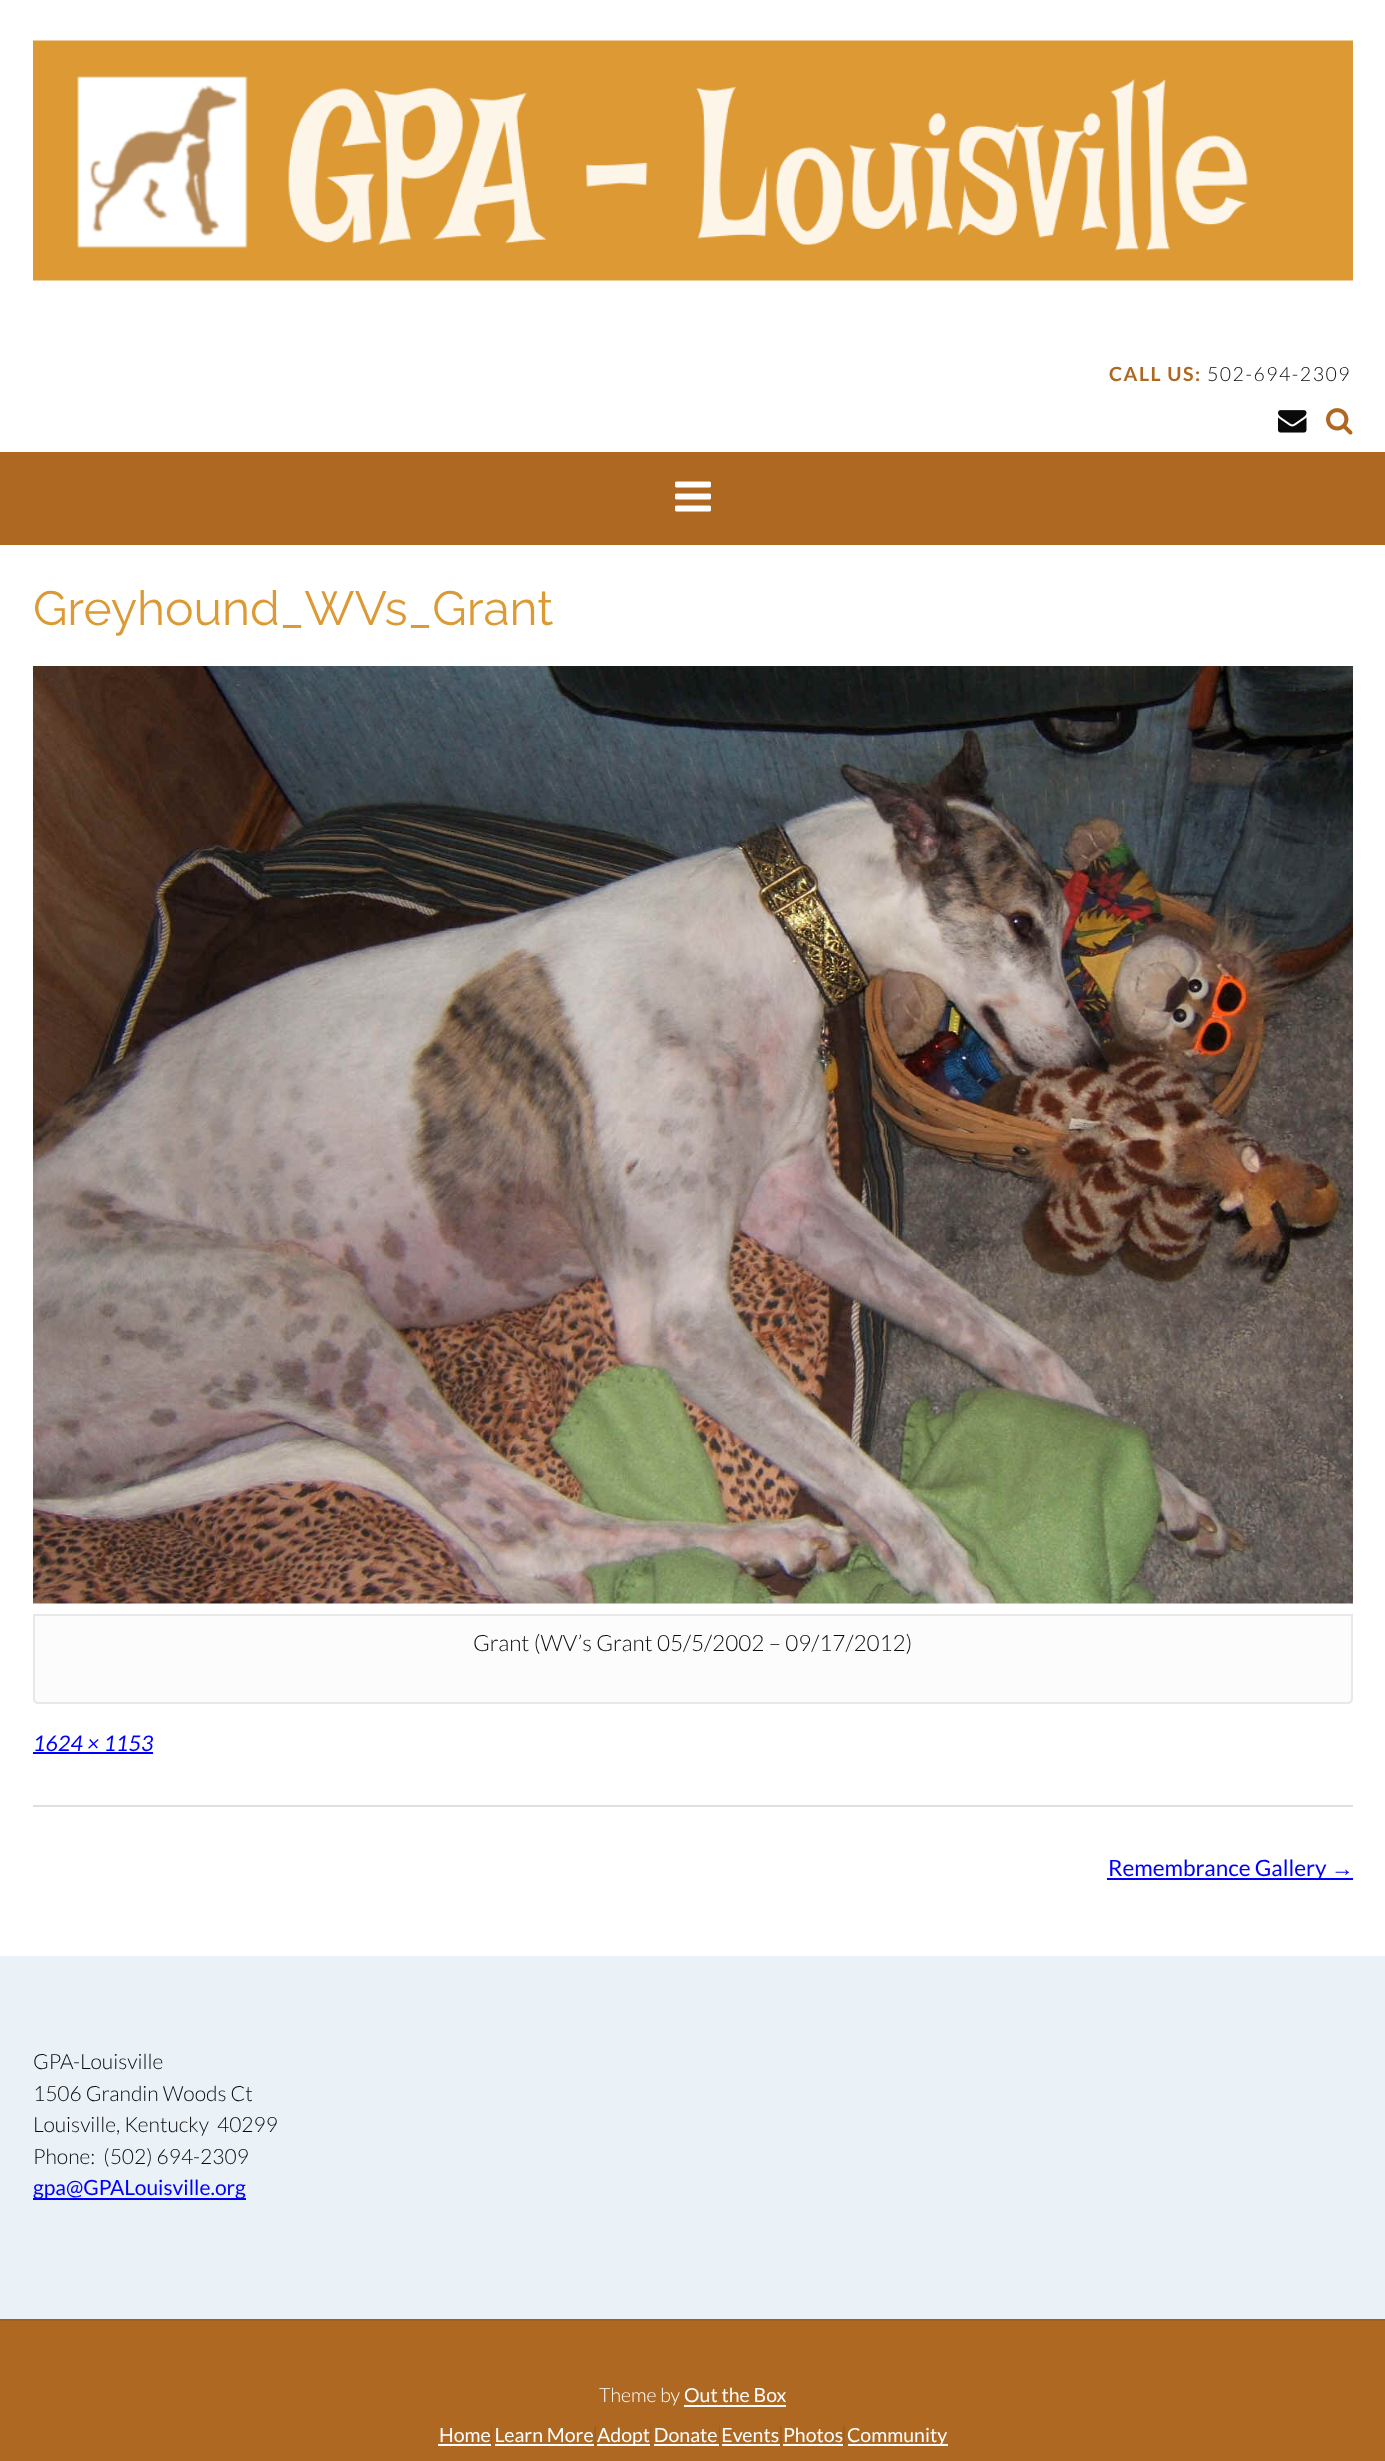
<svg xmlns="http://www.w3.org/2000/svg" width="1385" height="2461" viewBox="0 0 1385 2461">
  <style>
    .t1 { font: bold 19.5px Lato; letter-spacing: 1.5px; fill: #af6821; }
    .t2 { font: 300 19.5px Lato; letter-spacing: 1.5px; fill: #0a0a0a; }
    .t3 { font: 48px Raleway; fill: #d93; }
    .t4 { font: 300 22.5px Lato; fill: #0a0a0a; }
    .t5 { font: italic 21.5px Lato; fill: #00f; }
    .t6 { font: 22.5px Lato; fill: #00f; }
    .t7 { font: 22.5px Liberation Sans; fill: #00f; }
    .t8 { font: 300 21px Lato; fill: #0a0a0a; }
    .t9 { font: 21px Lato; fill: #00f; }
    .t10 { font: 300 19.5px Lato; fill: #fff; }
    .t11 { font: 19.5px Lato; fill: #fff; }
  </style>
  <rect width="100%" height="100%" fill="#fff"/>
  <image x="33" y="40" width="1320" height="241" href="images/1.png"/>
  <text x="1109" y="381" class="t1">CALL US:</text>
  <text x="1207" y="381" class="t2">502-694-2309</text>
  <image x="1278" y="410" width="29" height="23" href="images/2.png"/>
  <image x="1326" y="408" width="27" height="27" href="images/3.png"/>
  <rect x="0" y="452" width="1385" height="93" fill="#af6821"/>
  <image x="675" y="481" width="36" height="31" href="images/4.png"/>
  <rect x="33" y="1805" width="1320" height="2" fill="#e0e0e0"/>
  <text x="33" y="625" class="t3">Greyhound_WVs_Grant</text>
  <image x="33" y="666" width="1320" height="938" href="images/5.png"/>
  <path d="M34 1615H1352V1699C1352 1701 1350 1703 1348 1703H38C36 1703 34 1701 34 1699Z" fill="#fcfcfc" stroke="#e8e8e8" stroke-width="2"/>
  <text x="473" y="1651" class="t4">Grant (WV’s Grant 05/5/2002 – 09/17/2012)</text>
  <text x="33" y="1751" class="t5">1624 × 1153</text>
  <rect x="33" y="1752" width="120" height="2" fill="#00f"/>
  <rect x="1107" y="1878" width="246" height="2" fill="#00f"/>
  <text x="1108" y="1876" class="t6">Remembrance Gallery</text>
  <text x="1331" y="1876" class="t7">→</text>
  <rect x="0" y="1956" width="1385" height="363" fill="#eaf1f7"/>
  <text x="33" y="2069" class="t8">GPA-Louisville</text>
  <text x="33" y="2101" class="t8">1506 Grandin Woods Ct</text>
  <text x="33" y="2132" class="t8" xml:space="preserve">Louisville, Kentucky  40299</text>
  <text x="33" y="2164" class="t8" xml:space="preserve">Phone:  (502) 694-2309</text>
  <rect x="33" y="2198" width="213" height="2" fill="#00f"/>
  <text x="33" y="2195" class="t9">gpa@GPALouisville.org</text>
  <rect x="0" y="2321" width="1385" height="140" fill="#af6821"/>
  <rect x="0" y="2319" width="1385" height="2" fill="#a1601e"/>
  <text x="599" y="2402" class="t10">Theme by</text>
  <text x="684" y="2402" class="t11">Out the Box</text>
  <rect x="684" y="2405" width="102" height="2" fill="#fff"/>
  <rect x="594" y="2426" width="2" height="19" fill="#a1601e"/>
  <rect x="495" y="2444" width="99" height="2" fill="#fff"/>
  <rect x="650" y="2426" width="1" height="19" fill="#a1601e"/>
  <rect x="597" y="2444" width="53" height="2" fill="#fff"/>
  <text x="597" y="2442" class="t11">Adopt Donate Events Photos</text>
  <rect x="719" y="2426" width="1" height="19" fill="#a1601e"/>
  <rect x="654" y="2444" width="65" height="2" fill="#fff"/>
  <rect x="780" y="2426" width="2" height="19" fill="#a1601e"/>
  <rect x="722" y="2444" width="58" height="2" fill="#fff"/>
  <rect x="843" y="2426" width="2" height="19" fill="#a1601e"/>
  <rect x="783" y="2444" width="60" height="2" fill="#fff"/>
  <rect x="491" y="2426" width="1" height="19" fill="#a1601e"/>
  <text x="439" y="2442" class="t11">Home Learn More</text>
  <rect x="438" y="2444" width="53" height="2" fill="#fff"/>
  <rect x="848" y="2444" width="100" height="2" fill="#fff"/>
  <text x="847" y="2442" class="t11">Community</text>
</svg>
